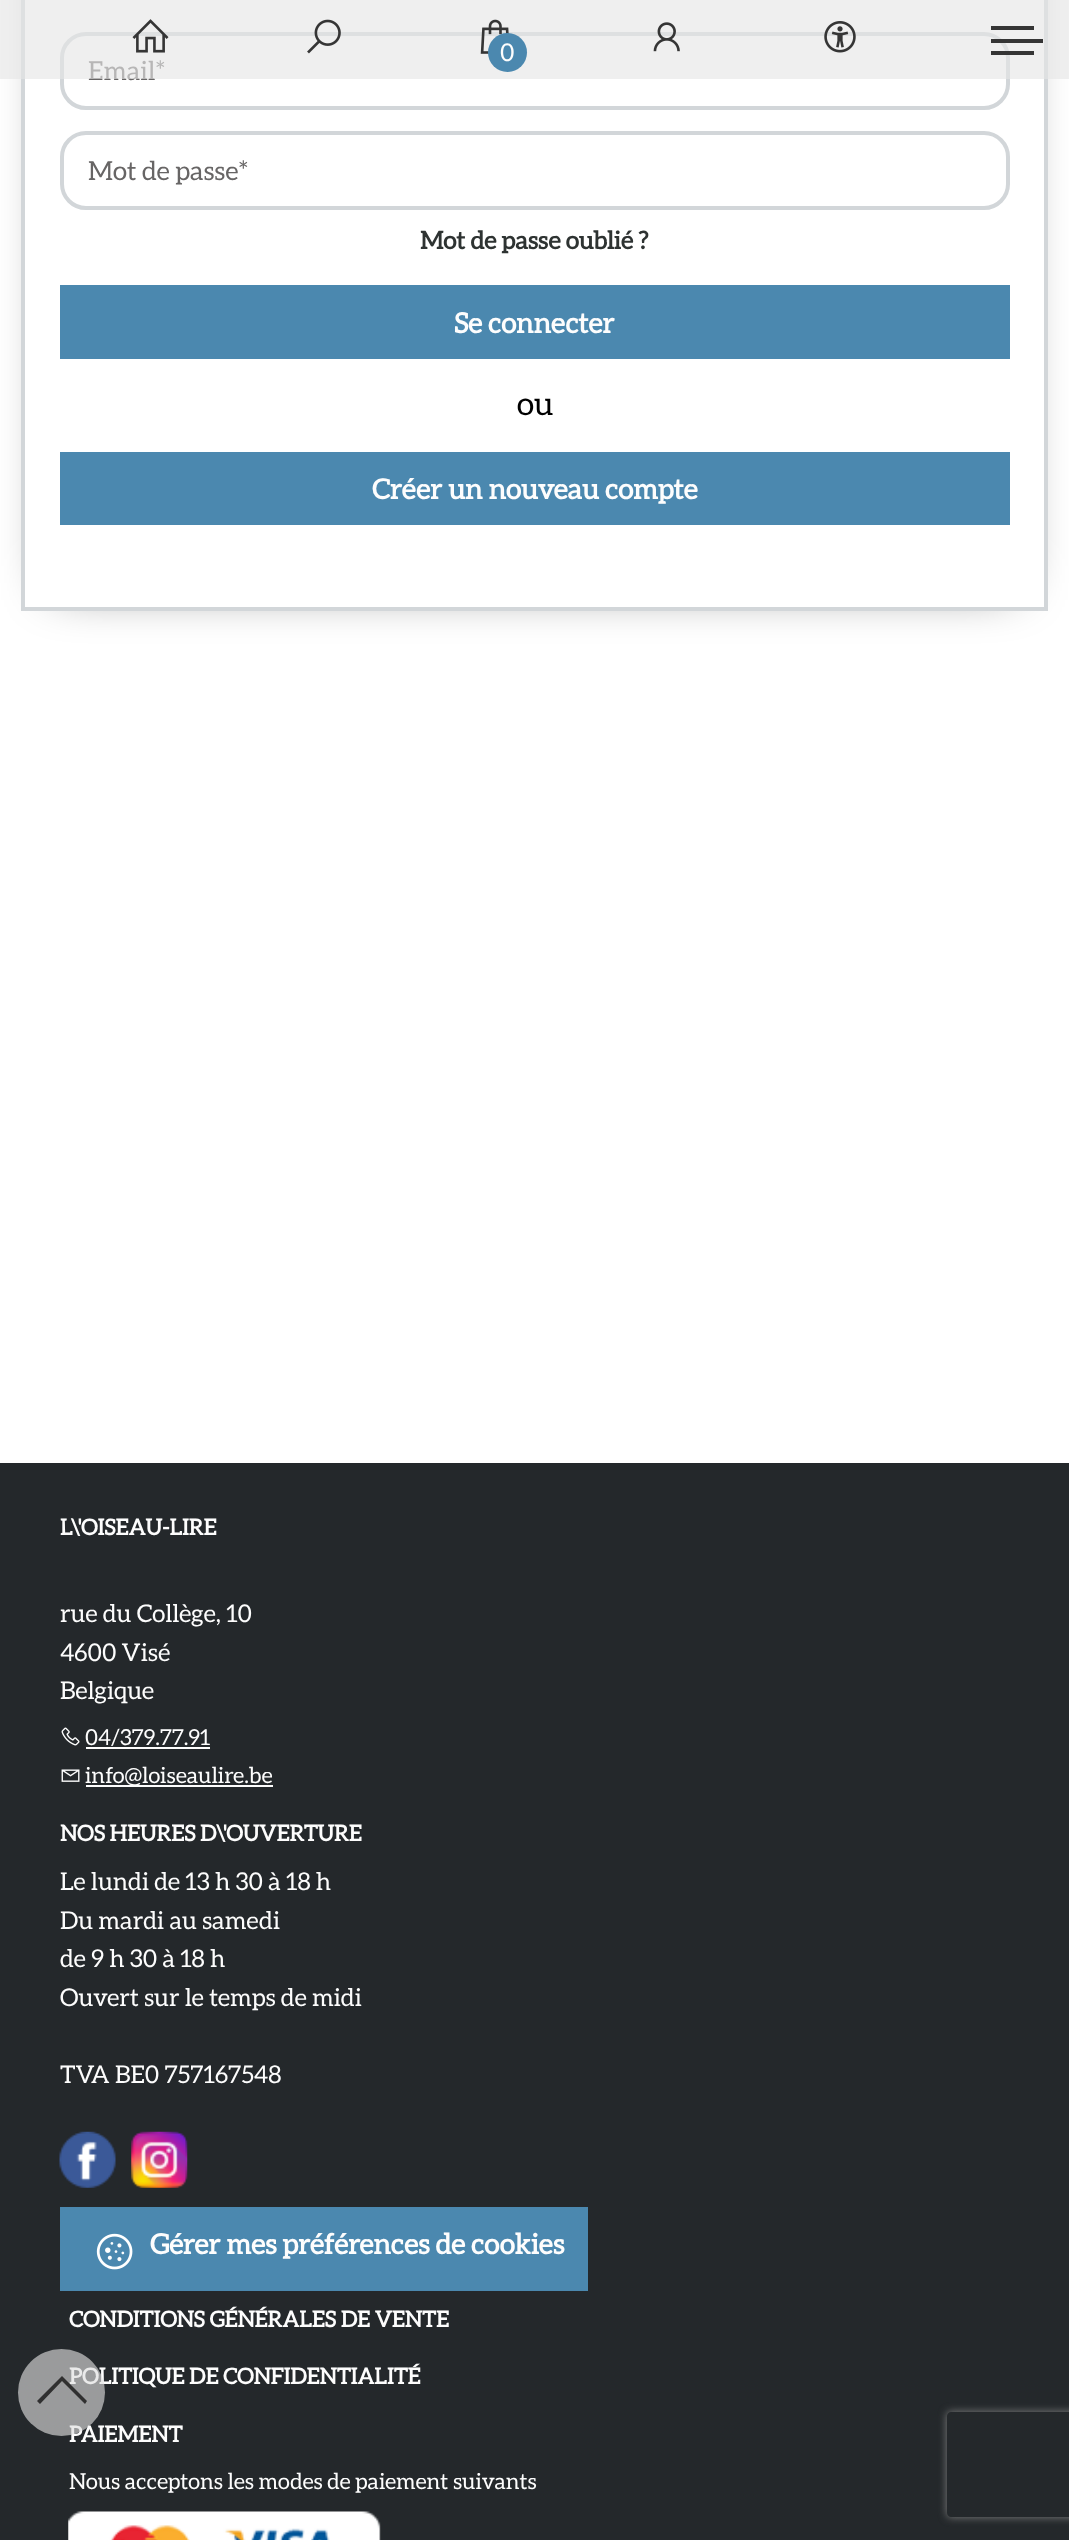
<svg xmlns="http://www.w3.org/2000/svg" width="1069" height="2540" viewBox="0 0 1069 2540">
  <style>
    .t1 { font: 26.25px Aleo; fill: #676565; }
    .t2 { font: 24.5px Aleo; fill: #fdfdfd; }
    .t3 { font: bold 24.5px Aleo; fill: #2e3332; }
    .t4 { font: bold 28px Aleo; fill: #fdfdfd; }
    .t5 { font: 32px Aleo; fill: #000; }
    .t6 { font: bold 22.05px Aleo; fill: #fdfdfd; }
    .t7 { font: 22.05px Aleo; fill: #fdfdfd; }
  </style>
  <defs>
    <clipPath id="clip1"><path d="M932 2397H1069V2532H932ZM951 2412H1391C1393 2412 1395 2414 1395 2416V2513C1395 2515 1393 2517 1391 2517H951C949 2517 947 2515 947 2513V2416C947 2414 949 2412 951 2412Z" clip-rule="evenodd"/></clipPath>
  </defs>
  <rect width="100%" height="100%" fill="#fff"/>
  <rect x="56" y="-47" width="957" height="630" fill="#000000b3" filter="blur(26px)"/>
  <rect x="23" y="-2" width="1023" height="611" fill="#fff" stroke="#d2d6d9" stroke-width="4"/>
  <rect x="62" y="34" width="946" height="74" rx="24" fill="none" stroke="#d2d6d9" stroke-width="4"/>
  <text x="88" y="80" class="t1">Email*</text>
  <rect x="0" y="0" width="1069" height="79" fill="#e6e5e5a1"/>
  <image x="132" y="19" width="37" height="34" href="images/1.png"/>
  <image x="307" y="19" width="34" height="35" href="images/2.png"/>
  <image x="480" y="19" width="29" height="35" href="images/3.png"/>
  <circle cx="507.5" cy="52.5" r="19.5" fill="#4b88af"/>
  <text x="500" y="61" class="t2">0</text>
  <image x="653" y="22" width="27" height="30" href="images/4.png"/>
  <image x="824" y="21" width="32" height="32" href="images/5.png"/>
  <rect x="991" y="39" width="52" height="4" fill="#353535"/>
  <rect x="991" y="26" width="43" height="4" fill="#353535"/>
  <rect x="991" y="51" width="43" height="4" fill="#353535"/>
  <rect x="62" y="133" width="946" height="75" rx="24" fill="none" stroke="#d2d6d9" stroke-width="4"/>
  <text x="88" y="180" class="t1">Mot de passe*</text>
  <text x="420" y="249" class="t3">Mot de passe oublié ?</text>
  <rect x="60" y="285" width="950" height="74" fill="#4b88af"/>
  <text x="454" y="333" class="t4">Se connecter</text>
  <text x="517" y="415" class="t5">ou</text>
  <rect x="60" y="452" width="950" height="73" fill="#4b88af"/>
  <text x="372" y="499" class="t4">Créer un nouveau compte</text>
  <rect x="0" y="1463" width="1069" height="1077" fill="#24282b"/>
  <text x="69" y="2384" class="t6">POLITIQUE DE CONFIDENTIALITÉ</text>
  <text x="69" y="2442" class="t6">PAIEMENT</text>
  <circle cx="61.5" cy="2392.5" r="43.5" fill="#e0e0e0a1"/>
  <path d="M62 2376L37 2401L40 2404L62 2381L85 2404L87 2401Z" fill="#303030"/>
  <text x="60" y="1535" class="t6">L\'OISEAU-LIRE</text>
  <text x="60" y="1622" class="t2">rue du Collège, 10</text>
  <text x="60" y="1661" class="t2">4600 Visé</text>
  <text x="60" y="1699" class="t2">Belgique</text>
  <image x="61" y="1727" width="19" height="19" href="images/6.png"/>
  <text x="85" y="1745" class="t7">04/379.77.91</text>
  <rect x="86" y="1747" width="124" height="2" fill="#fdfdfd"/>
  <image x="61" y="1769" width="19" height="13" href="images/7.png"/>
  <rect x="86" y="1785" width="187" height="2" fill="#fdfdfd"/>
  <text x="85" y="1783" class="t7">info@loiseaulire.be</text>
  <text x="60" y="1841" class="t6">NOS HEURES D\'OUVERTURE</text>
  <text x="60" y="1890" class="t2">Le lundi de 13 h 30 à 18 h</text>
  <text x="60" y="1929" class="t2">Du mardi au samedi</text>
  <text x="60" y="1967" class="t2">de 9 h 30 à 18 h</text>
  <text x="60" y="2006" class="t2">Ouvert sur le temps de midi</text>
  <text x="60" y="2083" class="t2">TVA BE0 757167548</text>
  <image x="59" y="2131" width="57" height="57" href="images/8.png"/>
  <image x="131" y="2131" width="57" height="57" href="images/9.png"/>
  <rect x="60" y="2207" width="528" height="84" fill="#4b88af"/>
  <image x="96" y="2233" width="37" height="37" href="images/10.png"/>
  <text x="150" y="2254" class="t4">Gérer mes préférences de cookies</text>
  <text x="69" y="2327" class="t6">CONDITIONS GÉNÉRALES DE VENTE</text>
  <text x="69" y="2489" class="t7">Nous acceptons les modes de paiement suivants</text>
  <image x="68" y="2511" width="313" height="29" href="images/11.png"/>
  <g clip-path="url(#clip1)">
    <rect x="947" y="2412" width="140" height="105" rx="4" fill="#808080" filter="blur(4.5px)"/>
  </g>
</svg>
